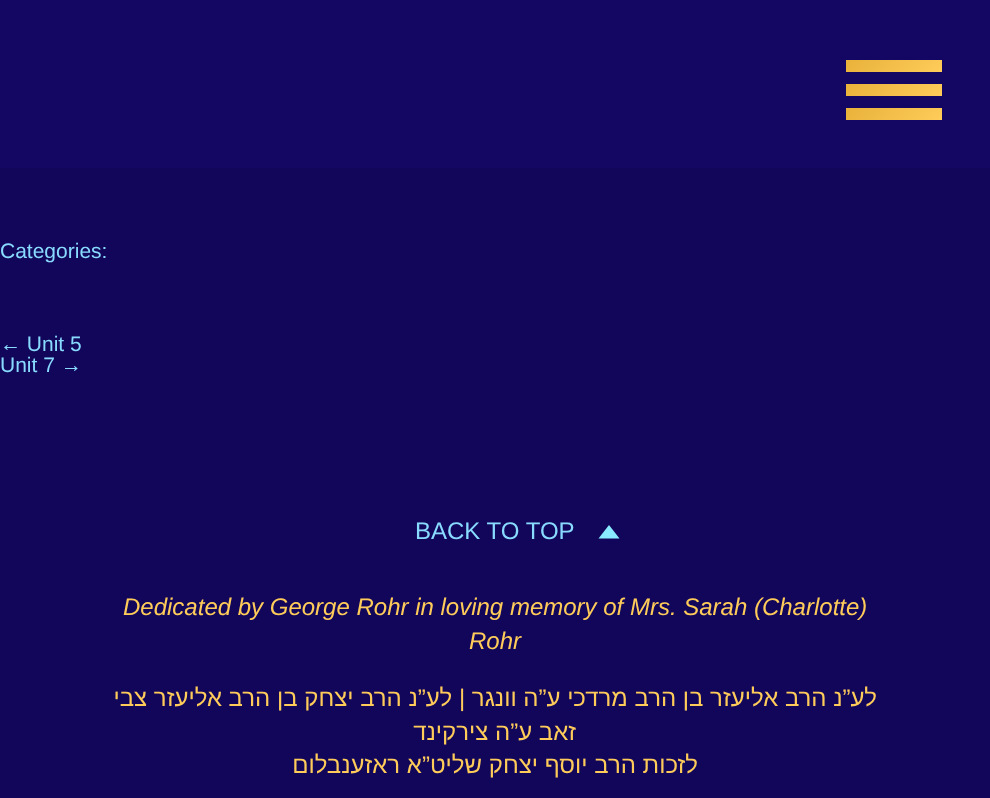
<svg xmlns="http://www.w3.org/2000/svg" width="990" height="798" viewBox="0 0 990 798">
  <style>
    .t1 { font: 21px Liberation Sans; fill: #88dbff; }
    .t2 { font: 24px Liberation Sans; fill: #88dbff; }
    .t3 { font: italic 24px Liberation Sans; fill: #ffcc5a; }
    .t4 { font: 24px Liberation Sans; direction: rtl; fill: #ffcc5a; }
  </style>
  <defs>
    <linearGradient id="g1" gradientUnits="userSpaceOnUse" x1="867" y1="39" x2="921" y2="93"><stop offset="0" stop-color="#e8b23a"/><stop offset="1" stop-color="#ffcc5a"/></linearGradient>
    <linearGradient id="g2" gradientUnits="userSpaceOnUse" x1="867" y1="63" x2="921" y2="117"><stop offset="0" stop-color="#e8b23a"/><stop offset="1" stop-color="#ffcc5a"/></linearGradient>
    <linearGradient id="g3" gradientUnits="userSpaceOnUse" x1="867" y1="87" x2="921" y2="141"><stop offset="0" stop-color="#e8b23a"/><stop offset="1" stop-color="#ffcc5a"/></linearGradient>
  </defs>
  <rect width="100%" height="100%" fill="#12065b"/>
  <rect x="0" y="0" width="990" height="168" fill="#140763"/>
  <rect x="846" y="60" width="96" height="12" fill="url(#g1)"/>
  <rect x="846" y="84" width="96" height="12" fill="url(#g2)"/>
  <rect x="846" y="108" width="96" height="12" fill="url(#g3)"/>
  <text x="0" y="258" class="t1">Categories:</text>
  <text x="0" y="351" class="t1">← Unit 5</text>
  <text x="0" y="372" class="t1">Unit 7 →</text>
  <path d="M619.5 538.5H598.5L609 525Z" fill="#88ebff"/>
  <text x="415" y="539" class="t2">BACK TO TOP</text>
  <text x="123" y="615" class="t3">Dedicated by George Rohr in loving memory of Mrs. Sarah (Charlotte)</text>
  <text x="469" y="649" class="t3">Rohr</text>
  <text x="877" y="706" class="t4">לע”נ הרב אליעזר בן הרב מרדכי ע”ה וונגר | לע”נ הרב יצחק בן הרב אליעזר צבי</text>
  <text x="576" y="740" class="t4">זאב ע”ה צירקינד</text>
  <text x="698" y="773" class="t4">לזכות הרב יוסף יצחק שליט”א ראזענבלום</text>
</svg>
